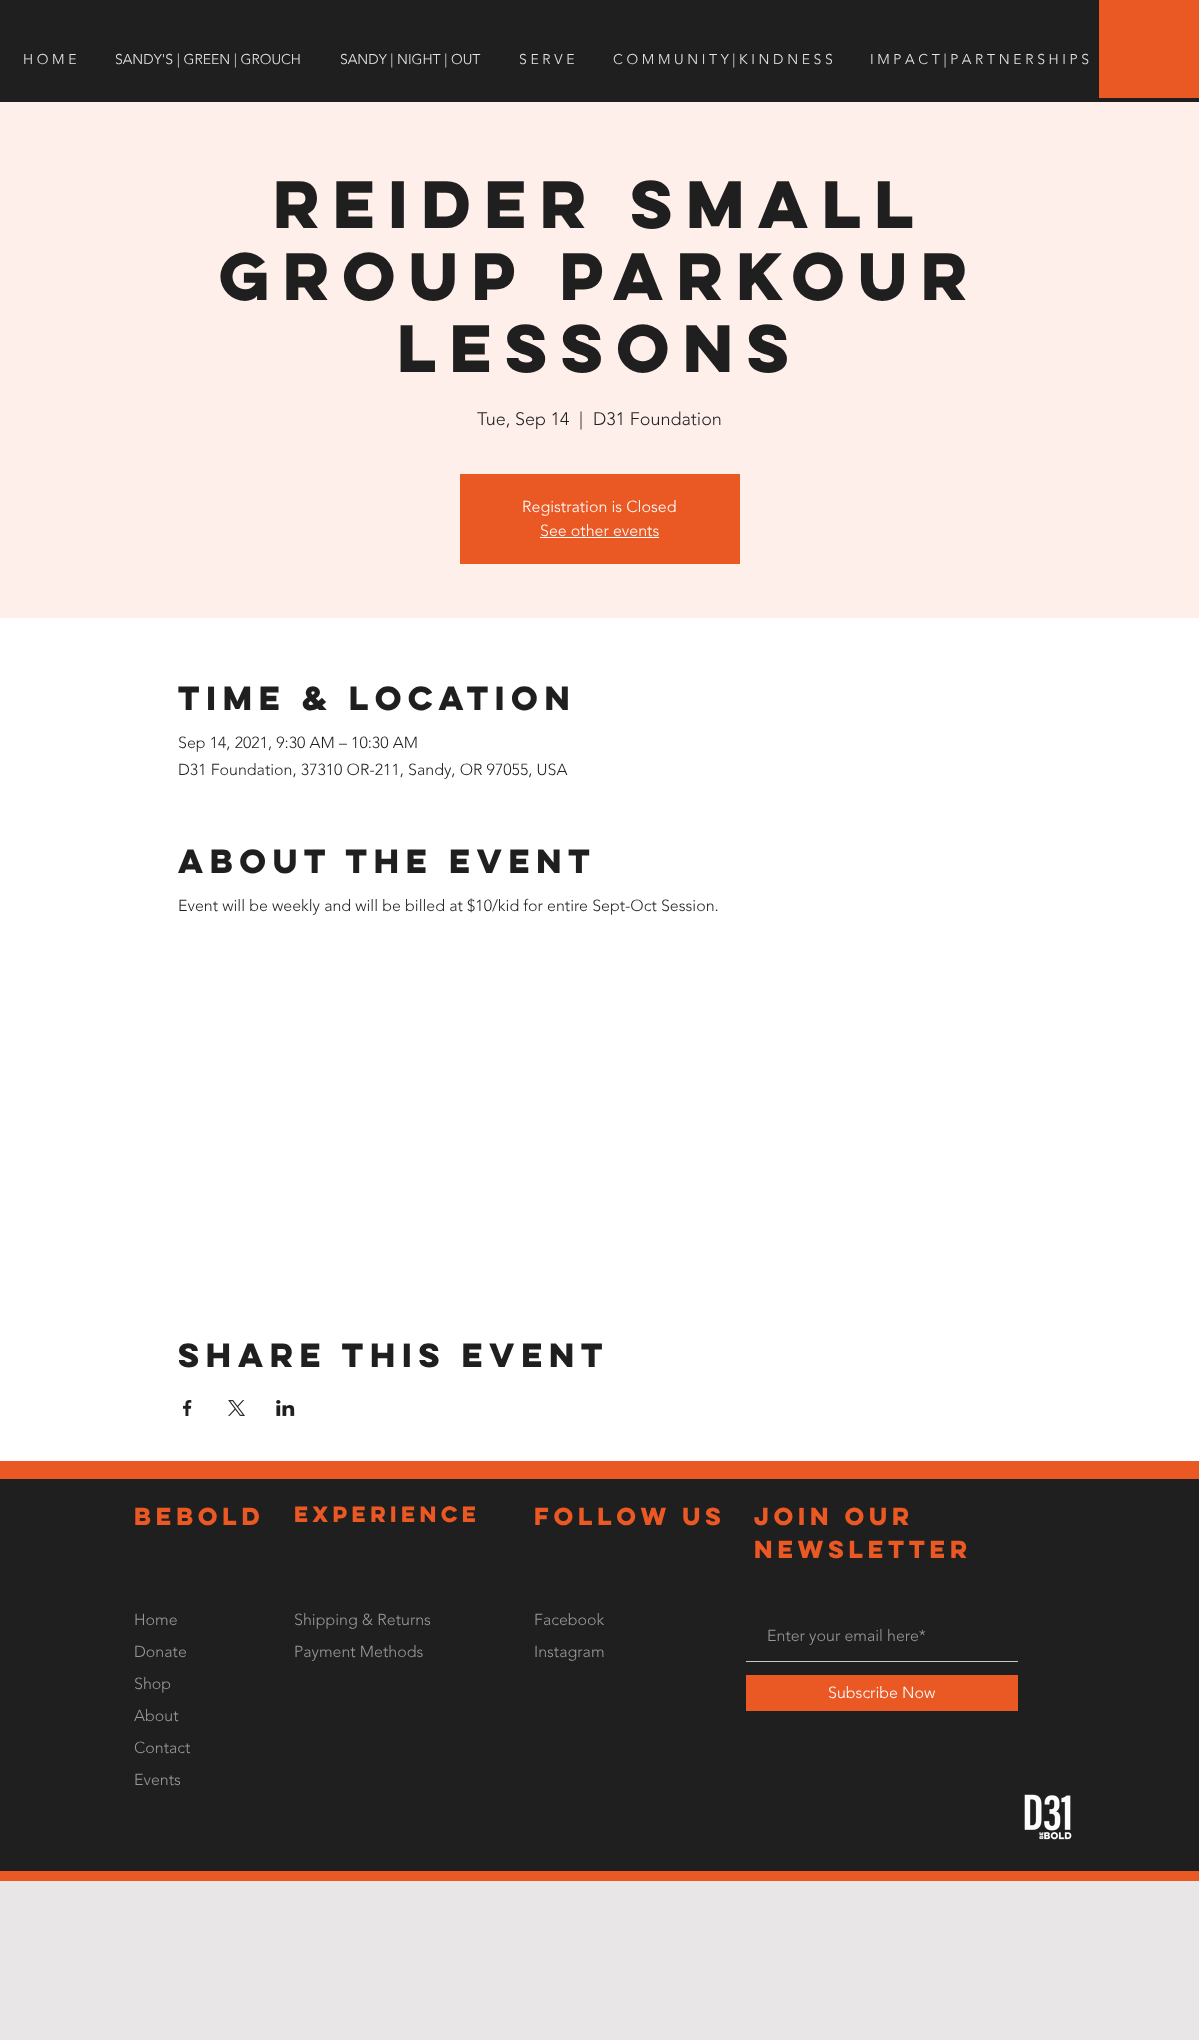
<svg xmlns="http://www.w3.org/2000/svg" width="1199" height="2040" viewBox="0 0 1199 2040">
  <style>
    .t1 { font: 300 14px 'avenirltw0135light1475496'; fill: #e8e6e6; }
    .t2 { font: bold 60px 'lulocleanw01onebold'; fill: #1f1f1f; }
    .t3 { font: 300 18px 'avenirltw0135light1475496'; fill: #1f1f1f; }
    .t4 { font: 300 16px 'avenirltw0135light1475496'; fill: #fff; }
    .t5 { font: bold 30px 'lulocleanw01onebold'; fill: #1f1f1f; }
    .t6 { font: 300 16px 'avenirltw0135light1475496'; fill: #1f1f1f; }
    .t7 { font: bold 22px 'lulocleanw01onebold'; fill: #ea5823; }
    .t8 { font: bold 20px 'lulocleanw01onebold'; fill: #ea5823; }
    .t9 { font: 300 16px 'avenirltw0135light1475496'; fill: #999997; }
  </style>
  <rect width="100%" height="100%" fill="#e8e6e6"/>
  <rect x="0" y="0" width="1199" height="102" fill="#1f1f1f"/>
  <text x="23" y="64" class="t1">H O M E</text>
  <text x="115" y="64" class="t1">SANDY'S | GREEN | GROUCH</text>
  <text x="340" y="64" class="t1">SANDY | NIGHT | OUT</text>
  <text x="519" y="64" class="t1">S E R V E</text>
  <text x="613" y="64" class="t1">C O M M U N I T Y | K I N D N E S S</text>
  <text x="870" y="64" class="t1">I M P A C T | P A R T N E R S H I P S</text>
  <rect x="1099" y="0" width="100" height="98" fill="#ea5823"/>
  <rect x="0" y="102" width="1199" height="516" fill="#feefea"/>
  <text x="273" y="228" class="t2">Reider Small</text>
  <text x="219" y="300" class="t2">Group Parkour</text>
  <text x="397" y="372" class="t2">Lessons</text>
  <text x="477" y="425" class="t3">Tue, Sep 14</text>
  <text x="579" y="425" class="t3">|</text>
  <text x="593" y="425" class="t3">D31 Foundation</text>
  <rect x="460" y="474" width="280" height="90" fill="#ea5823"/>
  <text x="522" y="512" class="t4">Registration is Closed</text>
  <text x="540" y="536" class="t4">See other events</text>
  <rect x="540" y="537" width="119" height="1" fill="#fff"/>
  <rect x="0" y="618" width="1199" height="843" fill="#fff"/>
  <text x="178" y="710" class="t5">Time &amp; Location</text>
  <text x="178" y="748" class="t6">Sep 14, 2021, 9:30 AM – 10:30 AM</text>
  <text x="178" y="775" class="t6">D31 Foundation, 37310 OR-211, Sandy, OR 97055, USA</text>
  <text x="178" y="873" class="t5">About the event</text>
  <text x="178" y="911" class="t6">Event will be weekly and will be billed at $10/kid for entire Sept-Oct Session.</text>
  <text x="178" y="1367" class="t5">Share this event</text>
  <image x="183" y="1400" width="9" height="16" href="images/1.png"/>
  <image x="228" y="1400" width="17" height="16" href="images/2.png"/>
  <image x="276" y="1400" width="19" height="16" href="images/3.png"/>
  <rect x="0" y="1461" width="1199" height="420" fill="#ea5823"/>
  <rect x="0" y="1479" width="1199" height="392" fill="#1f1f1f"/>
  <text x="134" y="1525" class="t7">BeBOLD</text>
  <text x="294" y="1522" class="t8">EXPERIENCE</text>
  <text x="534" y="1525" class="t7">FOLLOW US</text>
  <text x="754" y="1525" class="t7">JOIN OUR</text>
  <text x="754" y="1558" class="t7">newsletter</text>
  <text x="134" y="1625" class="t9">Home</text>
  <text x="134" y="1657" class="t9">Donate</text>
  <text x="134" y="1689" class="t9">Shop</text>
  <text x="134" y="1721" class="t9">About</text>
  <text x="134" y="1753" class="t9">Contact</text>
  <text x="134" y="1785" class="t9">Events</text>
  <text x="294" y="1625" class="t9">Shipping &amp; Returns</text>
  <text x="294" y="1657" class="t9">Payment Methods</text>
  <text x="534" y="1625" class="t9">Facebook</text>
  <text x="534" y="1657" class="t9">Instagram</text>
  <rect x="746" y="1661" width="272" height="1" fill="#c7c7c7"/>
  <text x="767" y="1641" class="t9">Enter your email here*</text>
  <rect x="746" y="1675" width="272" height="36" fill="#ea5823"/>
  <text x="828" y="1698" class="t4">Subscribe Now</text>
  <image x="1024" y="1794" width="48" height="46" href="images/4.png"/>
</svg>
